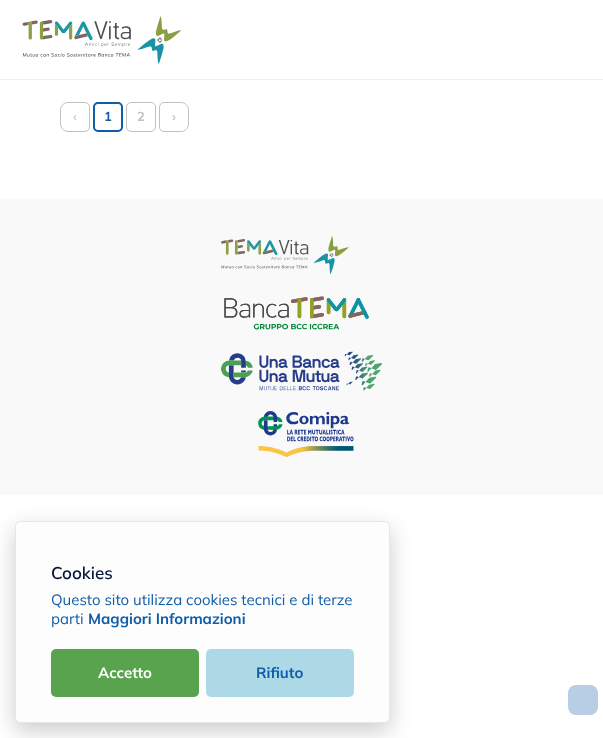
<svg xmlns="http://www.w3.org/2000/svg" width="603" height="738" viewBox="0 0 603 738">
  <style>
    .t1 { font: bold 13px Mulish; fill: #c4cada; }
    .t2 { font: bold 13px Mulish; fill: #105ca8; }
    .t3 { font: bold 13px Mulish; fill: #c1c1c1; }
    .t4 { font: 600 17px Mulish; fill: #071437; }
    .t5 { font: 15px Mulish; fill: #105ca8; }
    .t6 { font: bold 15px Mulish; fill: #105ca8; }
    .t7 { font: bold 15px Mulish; fill: #fff; }
  </style>
  <rect width="100%" height="100%" fill="#fff"/>
  <rect x="0" y="79" width="603" height="1" fill="#ecedf2"/>
  <image x="22" y="16" width="160" height="48" href="images/1.png"/>
  <path d="M68 102.5H85C87.5 102.5 89.5 104.5 89.5 107V127C89.5 129.5 87.5 131.5 85 131.5H68C64 131.5 60.5 128 60.5 124V110C60.5 106 64 102.5 68 102.5Z" fill="none" stroke="#c1c1c1"/>
  <text x="73" y="121" class="t1">‹</text>
  <rect x="94" y="103" width="28" height="28" rx="4" fill="none" stroke="#105ca8" stroke-width="2"/>
  <text x="104" y="121" class="t2">1</text>
  <rect x="126.5" y="102.5" width="29" height="29" rx="4.5" fill="none" stroke="#c1c1c1"/>
  <text x="137" y="121" class="t3">2</text>
  <path d="M164 102.5H181C185 102.5 188.5 106 188.5 110V124C188.5 128 185 131.5 181 131.5H164C161.5 131.5 159.5 129.5 159.5 127V107C159.5 104.5 161.5 102.5 164 102.5Z" fill="none" stroke="#c1c1c1"/>
  <text x="172" y="121" class="t3">›</text>
  <rect x="0" y="199" width="603" height="296" fill="#f9f9f9"/>
  <image x="221" y="236" width="128" height="38" href="images/2.png"/>
  <image x="224" y="296" width="145" height="34" href="images/3.png"/>
  <image x="221" y="351" width="161" height="40" href="images/4.png"/>
  <image x="258" y="411" width="96" height="46" href="images/5.png"/>
  <rect x="15" y="529" width="375" height="202" rx="5" fill="#02020333" filter="blur(11px)"/>
  <rect x="15.5" y="521.5" width="374" height="201" rx="4.5" fill="#fdfdfd" stroke="#e6e6e6"/>
  <text x="51" y="579" class="t4">Cookies</text>
  <text x="51" y="605" class="t5">Questo sito utilizza cookies tecnici e di terze</text>
  <text x="51" y="624" class="t5">parti</text>
  <text x="88" y="624" class="t6">Maggiori Informazioni</text>
  <rect x="51" y="649" width="148" height="48" rx="5" fill="#59a34f"/>
  <text x="98" y="678" class="t7">Accetto</text>
  <rect x="206" y="649" width="148" height="48" rx="5" fill="#add8e6"/>
  <text x="256" y="678" class="t6">Rifiuto</text>
  <rect x="568" y="685" width="30" height="30" rx="8" fill="#b7cee5"/>
</svg>
